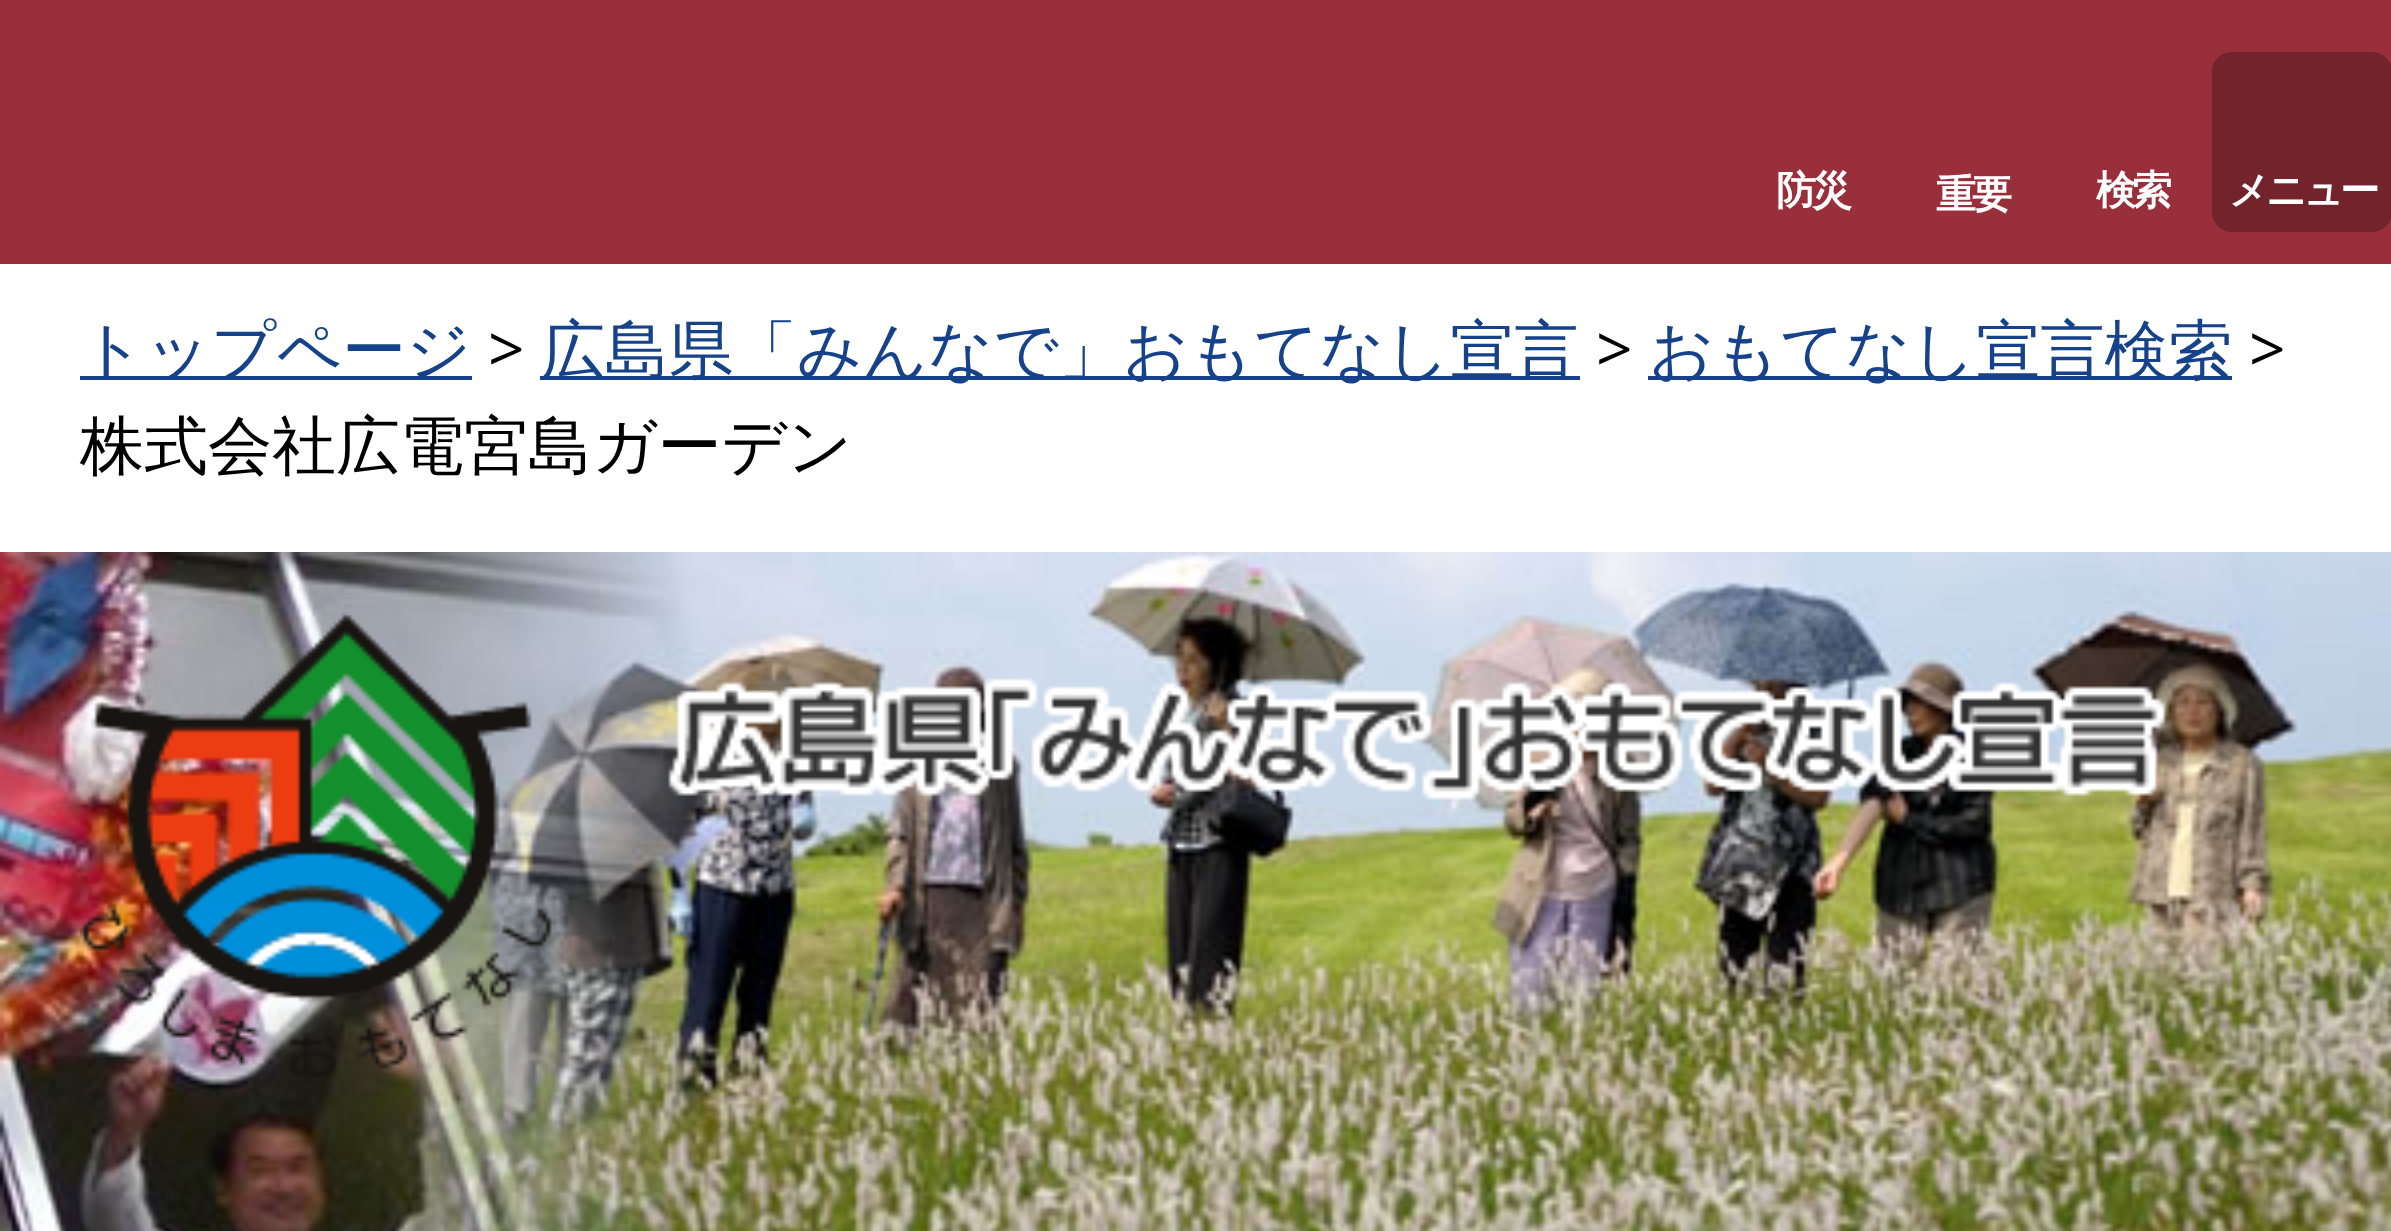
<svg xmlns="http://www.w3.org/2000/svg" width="2391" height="1231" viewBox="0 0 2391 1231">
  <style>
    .t1 { font: bold 40px WenQuanYi Zen Hei; letter-spacing: -4px; fill: #fff; }
    .t2 { font: 500 64px WenQuanYi Zen Hei; fill: #16428b; }
    .t3 { font: 64px Open Sans; fill: #000; }
    .t4 { font: 500 64px WenQuanYi Zen Hei; fill: #000; }
  </style>
  <rect width="100%" height="100%" fill="#fff"/>
  <rect x="0" y="0" width="2391" height="264" fill="#992f3b"/>
  <text x="1776" y="204" class="t1">防災</text>
  <text x="1936" y="208" class="t1">重要</text>
  <text x="2096" y="204" class="t1">検索</text>
  <rect x="2212" y="52" width="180" height="180" rx="20" fill="#73232c"/>
  <text x="2229" y="204" class="t1">メニュー</text>
  <rect x="80" y="376" width="392" height="4" fill="#16428b"/>
  <text x="80" y="372" class="t2">トップページ</text>
  <text x="488" y="372" class="t3">&gt;</text>
  <rect x="540" y="376" width="1040" height="4" fill="#16428b"/>
  <text x="541" y="372" class="t2">広島県「みんなで」おもてなし宣言</text>
  <text x="1596" y="372" class="t3">&gt;</text>
  <rect x="1648" y="376" width="584" height="4" fill="#16428b"/>
  <text x="1649" y="372" class="t2">おもてなし宣言検索</text>
  <text x="2249" y="372" class="t3">&gt;</text>
  <text x="80" y="468" class="t4">株式会社広電宮島ガーデン</text>
  <image x="0" y="552" width="2391" height="679" href="images/1.png"/>
  <image x="80" y="612" width="2086" height="465" href="images/2.png"/>
</svg>
